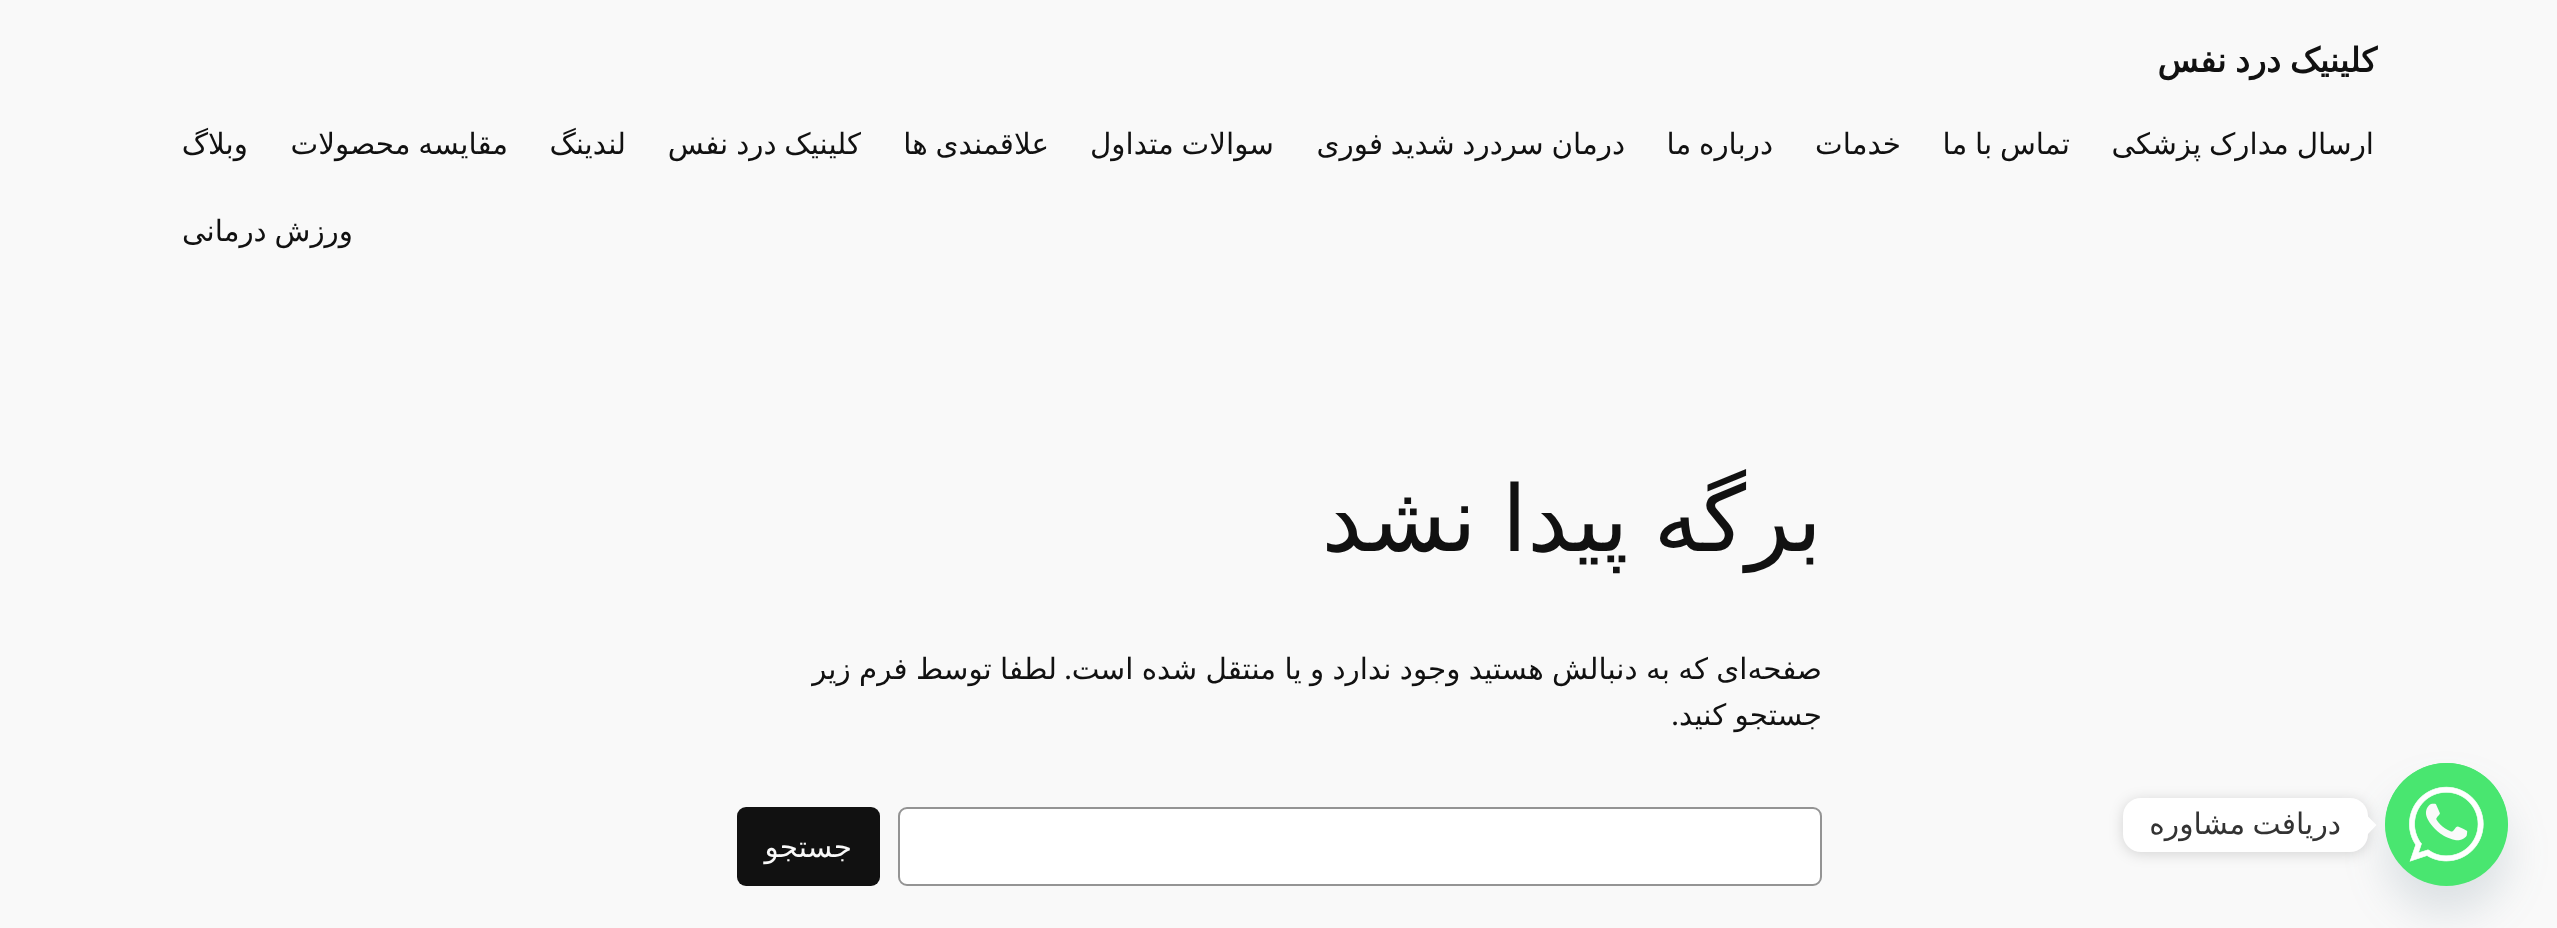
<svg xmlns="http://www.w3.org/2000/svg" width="2557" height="928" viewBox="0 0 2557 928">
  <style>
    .t1 { font: bold 33.5px DejaVu Sans; direction: rtl; fill: #111; }
    .t2 { font: 29.4px DejaVu Sans; direction: rtl; fill: #111; }
    .t3 { font: 91.5px DejaVu Sans; direction: rtl; fill: #111; }
    .t4 { font: 29.4px Inter; direction: rtl; fill: #111; }
    .t5 { font: 29.4px DejaVu Sans; direction: rtl; fill: #f9f9f9; }
    .t6 { font: 29.75px DejaVu Sans; direction: rtl; fill: #333; }
  </style>
  <rect width="100%" height="100%" fill="#f9f9f9"/>
  <text x="2377" y="72" word-spacing="-2" class="t1">کلینیک درد نفس</text>
  <text x="2374" y="154" word-spacing="-1.5" class="t2">ارسال مدارک پزشکی</text>
  <text x="2070" y="154" word-spacing="-1.5" class="t2">تماس با ما</text>
  <text x="1901" y="154" class="t2">خدمات</text>
  <text x="1773" y="154" word-spacing="-1.5" class="t2">درباره ما</text>
  <text x="1625" y="154" word-spacing="-1.5" class="t2">درمان سردرد شدید فوری</text>
  <text x="1274" y="154" word-spacing="-1.5" class="t2">سوالات متداول</text>
  <text x="1049" y="154" word-spacing="-1.5" class="t2">علاقمندی ها</text>
  <text x="861" y="154" word-spacing="-1.5" class="t2">کلینیک درد نفس</text>
  <text x="626" y="154" class="t2">لندینگ</text>
  <text x="508" y="154" word-spacing="-1.5" class="t2">مقایسه محصولات</text>
  <text x="248" y="154" class="t2">وبلاگ</text>
  <text x="353" y="241" word-spacing="-1.5" class="t2">ورزش درمانی</text>
  <text x="1822" y="551" word-spacing="-4" class="t3">برگه پیدا نشد</text>
  <text x="1822" y="679" word-spacing="-1" class="t2">صفحه‌ای که به دنبالش هستید وجود ندارد و یا منتقل شده است</text>
  <text x="1072" y="679" class="t4">.</text>
  <text x="1057" y="679" word-spacing="-1" class="t2">لطفا توسط فرم زیر</text>
  <text x="1822" y="725" word-spacing="-1" class="t2">جستجو کنید</text>
  <text x="1679" y="725" class="t4">.</text>
  <rect x="899" y="808" width="922" height="77" rx="8" fill="#fff" stroke="#949494" stroke-width="2"/>
  <rect x="737" y="807" width="143" height="79" rx="9" fill="#111"/>
  <text x="852" y="857" class="t5">جستجو</text>
  <rect x="2385" y="791" width="123" height="123" rx="61.5" fill="#49687e29" filter="blur(21px)"/>
  <circle cx="2446.5" cy="824.5" r="61.5" fill="#49e670"/>
  <image x="2385" y="763" width="123" height="99" href="images/1.png"/>
  <rect x="2123" y="800" width="245" height="54" rx="18" fill="#00000026" filter="blur(7px)"/>
  <rect x="2123" y="798" width="245" height="54" rx="18" fill="#fff"/>
  <path d="M2368 834V816.5L2376.5 825Z" fill="#fff"/>
  <text x="2341" y="834" word-spacing="-2" class="t6">دریافت مشاوره</text>
</svg>
